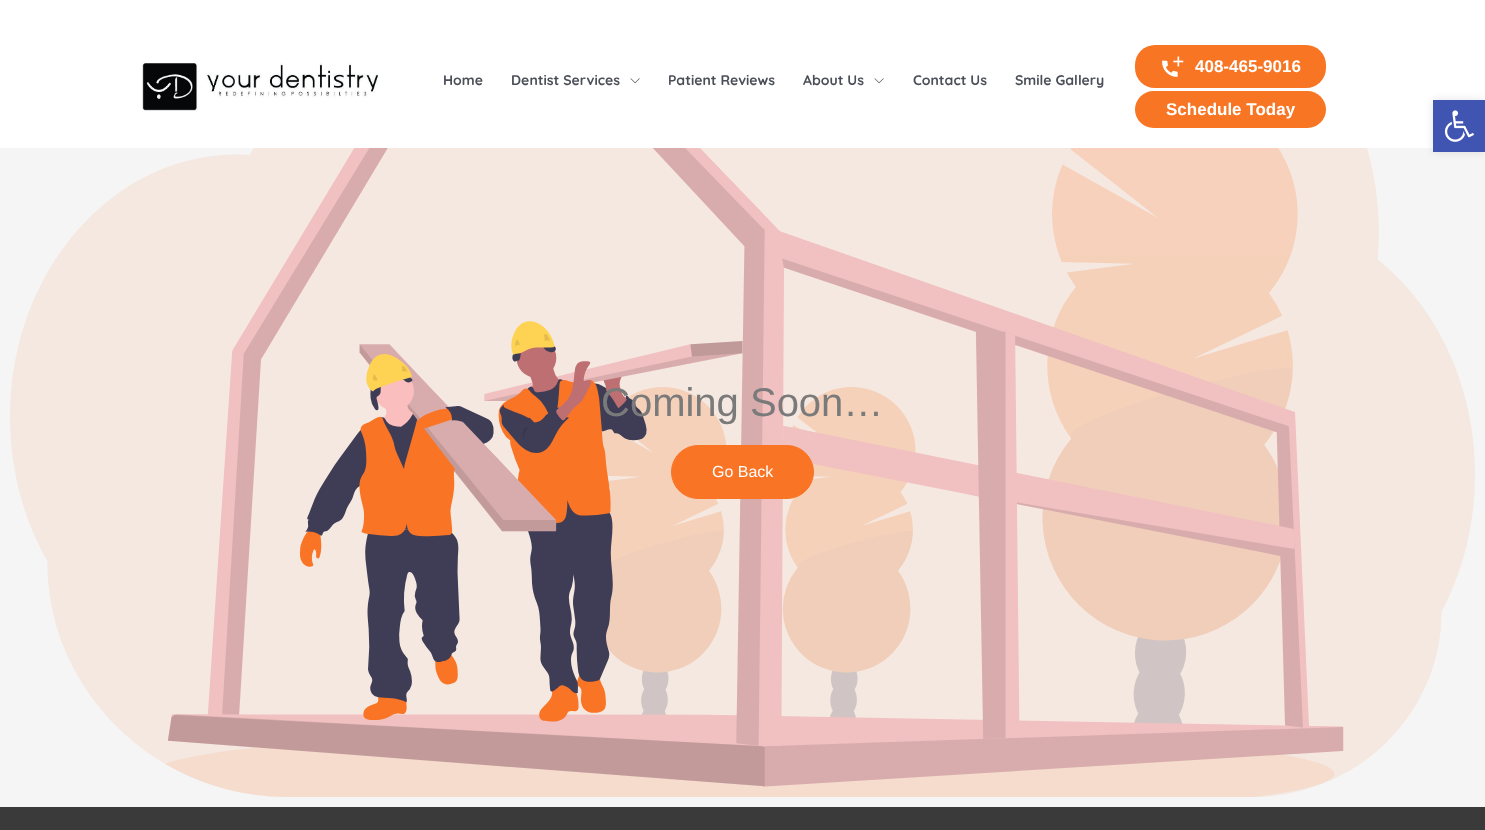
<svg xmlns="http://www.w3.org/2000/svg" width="1485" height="830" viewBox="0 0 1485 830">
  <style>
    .t1 { font: bold 14px Quicksand; fill: #4b4f58; }
    .t2 { font: bold 17px Liberation Sans; fill: #fff; }
    .t3 { font: 40px Liberation Sans; fill: #7a7a7a; }
    .t4 { font: 16px Liberation Sans; fill: #fff; }
  </style>
  <rect width="100%" height="100%" fill="#f5f5f5"/>
  <rect x="0" y="0" width="1485" height="148" fill="#fff"/>
  <image x="142" y="63" width="236" height="48" href="images/1.png"/>
  <text x="443" y="85" class="t1">Home</text>
  <text x="511" y="85" class="t1">Dentist Services</text>
  <image x="630" y="78" width="10" height="6" href="images/2.png"/>
  <text x="668" y="85" class="t1">Patient Reviews</text>
  <text x="803" y="85" class="t1">About Us</text>
  <image x="874" y="78" width="10" height="6" href="images/2.png"/>
  <text x="913" y="85" class="t1">Contact Us</text>
  <text x="1015" y="85" class="t1">Smile Gallery</text>
  <rect x="1135" y="45" width="191" height="43" rx="20" fill="#f87523"/>
  <image x="1162" y="56" width="22" height="21" href="images/3.png"/>
  <text x="1195" y="72" class="t2">408-465-9016</text>
  <rect x="1135" y="91" width="191" height="37" rx="18.5" fill="#f87523"/>
  <text x="1166" y="115" class="t2">Schedule Today</text>
  <image x="10" y="148" width="1465" height="649" href="images/4.png"/>
  <text x="601" y="416" class="t3">Coming Soon…</text>
  <rect x="671.5" y="445.5" width="142" height="53" rx="26.5" fill="#f97425" stroke="#f97425"/>
  <text x="712" y="477" class="t4">Go Back</text>
  <rect x="0" y="807" width="1485" height="23" fill="#3a3a3a"/>
  <rect x="1433" y="100" width="52" height="52" fill="#0000001a" filter="blur(5px)"/>
  <rect x="1433" y="100" width="52" height="52" fill="#4054b2"/>
  <image x="1444" y="110" width="30" height="32" href="images/5.png"/>
</svg>
